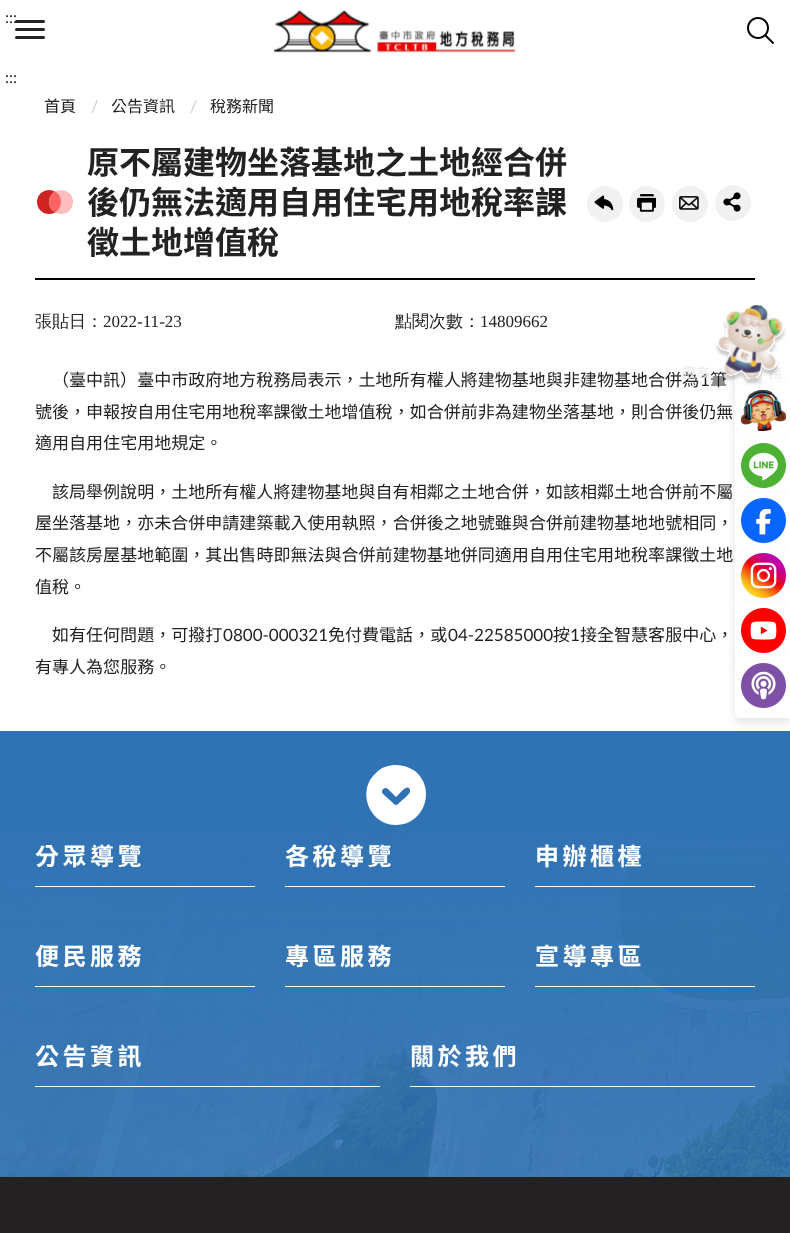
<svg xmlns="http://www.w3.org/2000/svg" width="790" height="1233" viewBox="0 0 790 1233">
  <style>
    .t1 { font: 16px Lato; fill: #222; }
    .t2 { font: 16px Noto Sans TC; fill: #222; }
    .t3 { font: 16px Lato; fill: #ccc; }
    .t4 { font: bold 32px Noto Sans TC; fill: #222; }
    .t5 { font: 500 17.05px WenQuanYi Zen Hei; fill: #222; }
    .t6 { font: 17.05px Liberation Serif; fill: #222; }
    .t7 { font: 17.05px Noto Sans TC; fill: #222; }
    .t8 { font: 17.05px Lato; fill: #222; }
    .t9 { font: 14px Noto Sans TC; fill: #eaeaea; }
    .t10 { font: bold 24px Noto Sans TC; letter-spacing: 3.5px; fill: #fff; }
  </style>
  <rect width="100%" height="100%" fill="#fff"/>
  <rect x="15" y="20" width="30" height="3" rx="1.5" fill="#222"/>
  <text x="5" y="23" class="t1">:::</text>
  <rect x="15" y="28" width="30" height="3" rx="1.5" fill="#222"/>
  <rect x="15" y="36" width="30" height="3" rx="1.5" fill="#222"/>
  <image x="274" y="9" width="242" height="44" href="images/1.png"/>
  <image x="747" y="17" width="27" height="27" href="images/2.png"/>
  <text x="5" y="83" class="t1">:::</text>
  <text x="44" y="112" class="t2">首頁</text>
  <text x="91" y="112" class="t3">/</text>
  <text x="111" y="112" class="t2">公告資訊</text>
  <text x="190" y="112" class="t3">/</text>
  <text x="210" y="112" class="t2">稅務新聞</text>
  <rect x="35" y="278" width="720" height="2" fill="#000"/>
  <circle cx="49" cy="202" r="12" fill="#cf2424"/>
  <circle cx="61" cy="202" r="12" fill="#ffbdbd"/>
  <path d="M55 191.5C47 196 47 208 55 212.5C63 208 63 196 55 191.5Z" fill="#ff6464"/>
  <text x="87" y="174" class="t4">原不屬建物坐落基地之土地經合併</text>
  <text x="87" y="214" class="t4">後仍無法適用自用住宅用地稅率課</text>
  <text x="87" y="254" class="t4">徵土地增值稅</text>
  <circle cx="605" cy="204" r="18" fill="#f1f1f1"/>
  <image x="594" y="195" width="20" height="16" href="images/3.png"/>
  <circle cx="647" cy="204" r="18" fill="#f1f1f1"/>
  <image x="637" y="194" width="19" height="18" href="images/4.png"/>
  <circle cx="690" cy="204" r="18" fill="#f1f1f1"/>
  <image x="679" y="196" width="20" height="14" href="images/5.png"/>
  <circle cx="733" cy="203" r="18" fill="#f1f1f1"/>
  <image x="723" y="192" width="18" height="20" href="images/6.png"/>
  <text x="35" y="327" class="t5">張貼日：</text>
  <text x="103" y="327" class="t6">2022-11-23</text>
  <text x="395" y="327" class="t5">點閱次數：</text>
  <text x="480" y="327" class="t6">14809662</text>
  <text x="52" y="386" class="t7">（臺中訊）臺中市政府地方稅務局表示，土地所有權人將建物基地與非建物基地合併為</text>
  <text x="700" y="386" class="t8">1</text>
  <text x="710" y="386" class="t7">筆</text>
  <text x="35" y="418" class="t7">號後，申報按自用住宅用地稅率課徵土地增值稅，如合併前非為建物坐落基地，則合併後仍無</text>
  <text x="35" y="449" class="t7">適用自用住宅用地規定。</text>
  <text x="52" y="498" class="t7">該局舉例說明，土地所有權人將建物基地與自有相鄰之土地合併，如該相鄰土地合併前不屬</text>
  <text x="35" y="529" class="t7">屋坐落基地，亦未合併申請建築載入使用執照，合併後之地號雖與合併前建物基地地號相同，</text>
  <text x="35" y="561" class="t7">不屬該房屋基地範圍，其出售時即無法與合併前建物基地併同適用自用住宅用地稅率課徵土地</text>
  <text x="35" y="593" class="t7">值稅。</text>
  <text x="52" y="641" class="t7">如有任何問題，可撥打</text>
  <text x="223" y="641" class="t8">0800-000321</text>
  <text x="328" y="641" class="t7">免付費電話，或</text>
  <text x="448" y="641" class="t8">04-22585000</text>
  <text x="553" y="641" class="t7">按</text>
  <text x="570" y="641" class="t8">1</text>
  <text x="580" y="641" class="t7">接全智慧客服中心，</text>
  <text x="35" y="673" class="t7">有專人為您服務。</text>
  <rect x="735" y="348" width="55" height="45" rx="4" fill="#0000001a" filter="blur(5px)"/>
  <rect x="735" y="343" width="55" height="40" fill="#fff"/>
  <rect x="735" y="388" width="55" height="55" fill="#0000001a" filter="blur(5px)"/>
  <text x="768" y="378" class="t9">務</text>
  <rect x="735" y="383" width="55" height="55" fill="#fff"/>
  <image x="715" y="305" width="71" height="80" href="images/7.png"/>
  <text x="682" y="378" class="t9">很高</text>
  <rect x="735" y="443" width="55" height="55" fill="#0000001a" filter="blur(5px)"/>
  <image x="741" y="390" width="45" height="41" href="images/8.png"/>
  <rect x="735" y="438" width="55" height="55" fill="#fff"/>
  <rect x="735" y="498" width="55" height="55" fill="#0000001a" filter="blur(5px)"/>
  <image x="741" y="443" width="45" height="45" href="images/9.png"/>
  <rect x="735" y="493" width="55" height="55" fill="#fff"/>
  <rect x="735" y="553" width="55" height="55" fill="#0000001a" filter="blur(5px)"/>
  <image x="741" y="498" width="45" height="45" href="images/10.png"/>
  <rect x="735" y="548" width="55" height="55" fill="#fff"/>
  <rect x="735" y="608" width="55" height="55" fill="#0000001a" filter="blur(5px)"/>
  <image x="741" y="553" width="45" height="45" href="images/11.png"/>
  <rect x="735" y="603" width="55" height="50" fill="#fff"/>
  <image x="0" y="731" width="790" height="446" href="images/14.png"/>
  <rect x="735" y="658" width="55" height="65" rx="4" fill="#0000001a" filter="blur(5px)"/>
  <image x="741" y="608" width="45" height="45" href="images/12.png"/>
  <path d="M735 653H790V718H739C737 718 735 716 735 714Z" fill="#fff"/>
  <image x="741" y="663" width="45" height="45" href="images/13.png"/>
  <path d="M396 765C403 765 409 767 415 771C437 789 424 826 395 825C368 824 356 789 377 772C382 767 389 765 396 765ZM388 789C385 786 380 790 383 794L392 802C395 806 397 806 400 802L406 797C407 795 411 793 410 790C408 784 402 791 400 793L396 797Z" fill="#fff" fill-rule="evenodd"/>
  <rect x="35" y="886" width="220" height="1" fill="#fff"/>
  <text x="35" y="865" class="t10">分眾導覽</text>
  <rect x="285" y="886" width="220" height="1" fill="#fff"/>
  <text x="285" y="865" class="t10">各稅導覽</text>
  <rect x="535" y="886" width="220" height="1" fill="#fff"/>
  <text x="535" y="865" class="t10">申辦櫃檯</text>
  <rect x="35" y="986" width="220" height="1" fill="#fff"/>
  <text x="35" y="965" class="t10">便民服務</text>
  <rect x="285" y="986" width="220" height="1" fill="#fff"/>
  <text x="285" y="965" class="t10">專區服務</text>
  <rect x="535" y="986" width="220" height="1" fill="#fff"/>
  <text x="535" y="965" class="t10">宣導專區</text>
  <rect x="35" y="1086" width="345" height="1" fill="#fff"/>
  <text x="35" y="1065" class="t10">公告資訊</text>
  <rect x="410" y="1086" width="345" height="1" fill="#fff"/>
  <text x="410" y="1065" class="t10">關於我們</text>
  <rect x="0" y="1177" width="790" height="56" fill="#232122"/>
</svg>
